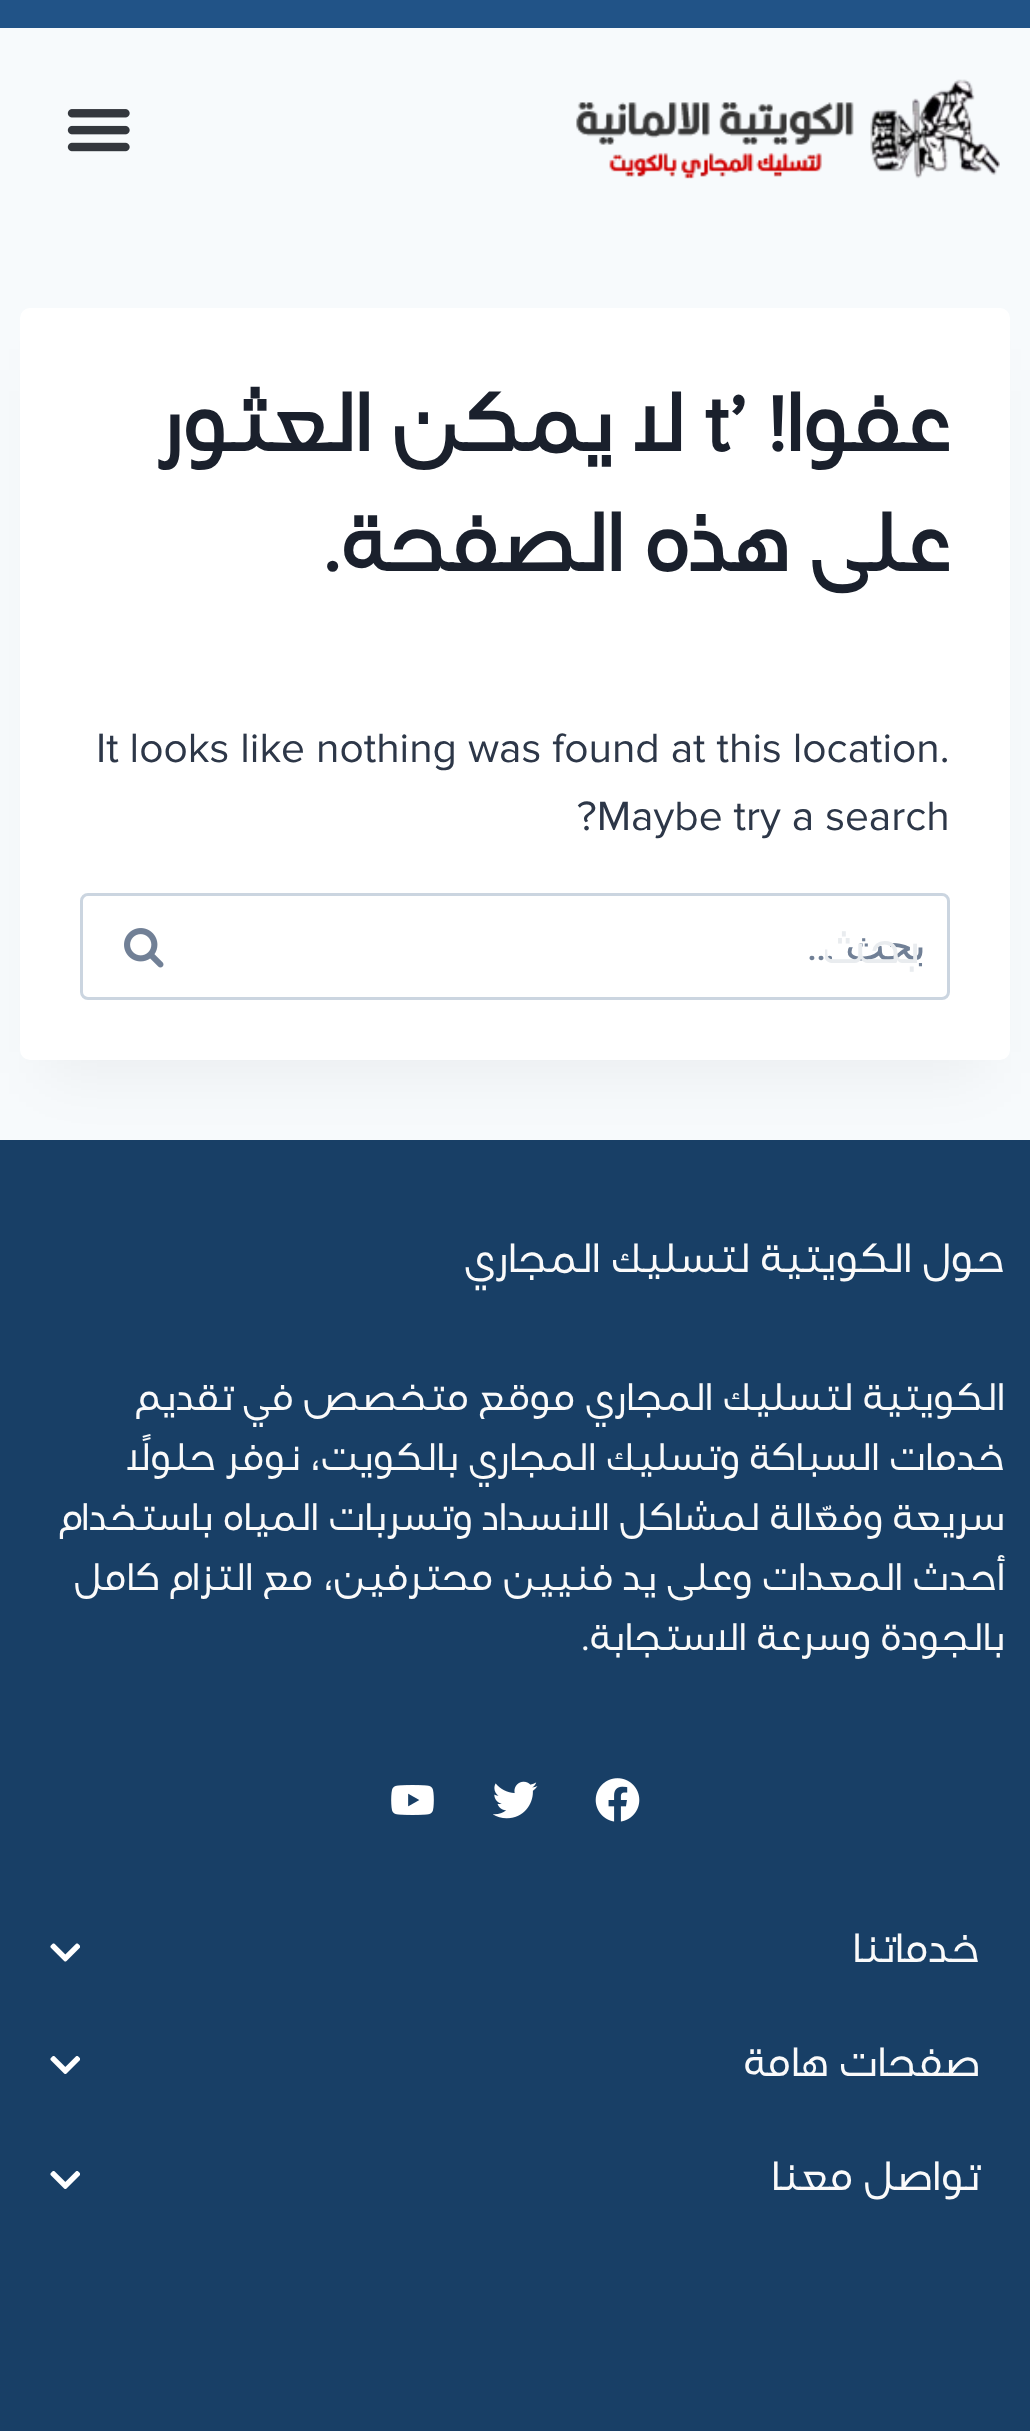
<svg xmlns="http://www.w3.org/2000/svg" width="1030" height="2431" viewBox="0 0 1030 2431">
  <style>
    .t1 { font: bold 80px 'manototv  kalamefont'; direction: rtl; fill: #1a202c; }
    .t2 { font: bold 80px 'manototv  kalamefont'; fill: #1a202c; }
    .t3 { font: 42.5px 'manototv  kalamefont'; fill: #2d3748; }
    .t4 { font: 42.5px DejaVu Sans; direction: rtl; fill: #718096; }
    .t5 { font: 42.5px Roboto; direction: rtl; fill: #718096; }
    .t6 { font: 45px 'manototv  kalamefont'; direction: rtl; fill: #e9ecef; }
    .t7 { font: 40px 'manototv  kalamefont'; direction: rtl; fill: #fafafa; }
    .t8 { font: 37.5px 'manototv  kalamefont'; direction: rtl; fill: #fafafa; }
  </style>
  <defs>
    <clipPath id="clip1"><rect x="825" y="893" width="125" height="107"/></clipPath>
  </defs>
  <rect width="100%" height="100%" fill="#f7fafc"/>
  <rect x="0" y="0" width="1030" height="28" fill="#215387"/>
  <image x="576" y="79" width="424" height="100" href="images/1.png"/>
  <image x="67" y="109" width="63" height="43" href="images/2.png"/>
  <rect x="45" y="370" width="940" height="703" fill="#0000000d" filter="blur(31px)"/>
  <rect x="20" y="308" width="990" height="752" rx="10" fill="#fff"/>
  <text x="950" y="451" class="t1">عفوا! ’</text>
  <text x="705" y="451" class="t2">t</text>
  <text x="684" y="451" class="t1">لا يمكن العثور</text>
  <text x="950" y="571" class="t1">على هذه الصفحة.</text>
  <text x="96" y="762" class="t3">It looks like nothing was found at this location.</text>
  <text x="577" y="830" class="t3">?Maybe try a search</text>
  <rect x="81.5" y="894.5" width="867" height="104" rx="6.5" fill="none" stroke="#cbd5e0" stroke-width="3"/>
  <text x="926" y="960" class="t4">بحث</text>
  <text x="835" y="960" class="t5">…</text>
  <g clip-path="url(#clip1)">
    <text x="920" y="963" class="t6">بحث</text>
  </g>
  <image x="124" y="928" width="40" height="40" href="images/3.png"/>
  <rect x="0" y="1140" width="1030" height="1291" fill="#183f66"/>
  <text x="1005" y="1272" class="t7">حول الكويتية لتسليك المجاري</text>
  <text x="1005" y="1410" class="t8">الكويتية لتسليك المجاري موقع متخصص في تقديم</text>
  <text x="1005" y="1470" class="t8">خدمات السباكة وتسليك المجاري بالكويت، نوفر حلولًا</text>
  <text x="1005" y="1530" class="t8">سريعة وفعّالة لمشاكل الانسداد وتسربات المياه باستخدام</text>
  <text x="1005" y="1590" class="t8">أحدث المعدات وعلى يد فنيين محترفين، مع التزام كامل</text>
  <text x="1005" y="1650" class="t8">بالجودة وسرعة الاستجابة.</text>
  <image x="595" y="1778" width="45" height="44" href="images/4.png"/>
  <image x="493" y="1781" width="45" height="38" href="images/5.png"/>
  <image x="391" y="1785" width="43" height="30" href="images/6.png"/>
  <text x="980" y="1962" class="t7">خدماتنا</text>
  <image x="50" y="1943" width="30" height="19" href="images/7.png"/>
  <text x="980" y="2076" class="t7">صفحات هامة</text>
  <image x="50" y="2056" width="30" height="18" href="images/8.png"/>
  <text x="980" y="2190" class="t7">تواصل معنا</text>
  <image x="50" y="2171" width="30" height="18" href="images/8.png"/>
</svg>
